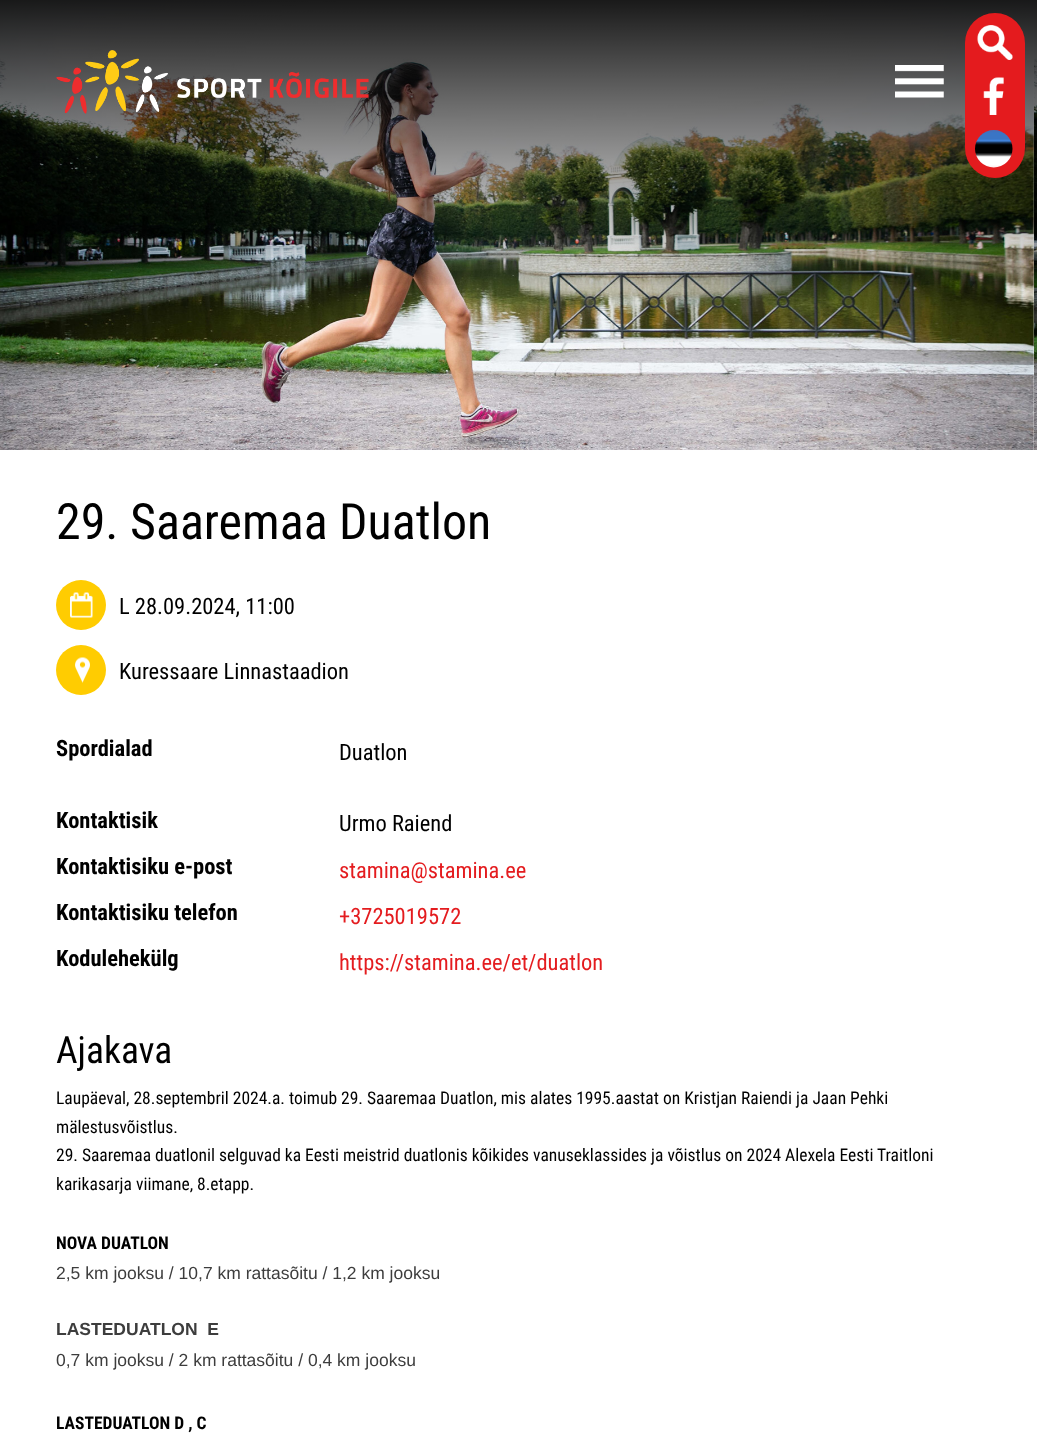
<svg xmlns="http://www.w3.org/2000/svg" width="1037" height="1445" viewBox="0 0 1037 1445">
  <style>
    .t1 { font: 50px Roboto Condensed; fill: #000; }
    .t2 { font: 22.5px Roboto Condensed; fill: #000; }
    .t3 { font: bold 22.5px Roboto Condensed; fill: #000; }
    .t4 { font: 22.5px Roboto Condensed; fill: #e41c1f; }
    .t5 { font: 37.5px Roboto Condensed; fill: #000; }
    .t6 { font: 17.5px Roboto Condensed; fill: #000; }
    .t7 { font: bold 17.5px Roboto Condensed; fill: #000; }
    .t8 { font: 17.5px Liberation Sans; fill: #3d3d3d; }
    .t9 { font: bold 17.5px Liberation Sans; fill: #3d3d3d; }
  </style>
  <defs>
    <linearGradient id="g1" gradientUnits="userSpaceOnUse" x1="519" y1="0" x2="519" y2="450"><stop offset="0" stop-color="#000" stop-opacity="0.9"/><stop offset="0.65" stop-color="#000" stop-opacity="0"/><stop offset="1" stop-color="#fff" stop-opacity="0"/></linearGradient>
  </defs>
  <rect width="100%" height="100%" fill="#fff"/>
  <image x="0" y="0" width="1034" height="450" href="images/1.png"/>
  <image x="1034" y="0" width="3" height="450" href="images/2.png"/>
  <rect x="0" y="0" width="1037" height="285" fill="url(#g1)"/>
  <image x="56" y="50" width="313" height="64" href="images/3.png"/>
  <image x="895" y="65" width="49" height="33" href="images/4.png"/>
  <rect x="965" y="13" width="60" height="165" rx="30" fill="#e41b1e"/>
  <image x="977" y="25" width="36" height="35" href="images/5.png"/>
  <image x="983" y="77" width="21" height="38" href="images/6.png"/>
  <image x="975" y="130" width="38" height="38" href="images/7.png"/>
  <text x="56" y="539" class="t1">29. Saaremaa Duatlon</text>
  <circle cx="81" cy="605" r="25" fill="#ffcc01"/>
  <image x="70" y="592" width="23" height="26" href="images/8.png"/>
  <text x="119" y="614" class="t2">L 28.09.2024, 11:00</text>
  <circle cx="81" cy="670" r="25" fill="#ffcc01"/>
  <image x="75" y="657" width="15" height="26" href="images/9.png"/>
  <text x="119" y="679" class="t2">Kuressaare Linnastaadion</text>
  <text x="56" y="756" class="t3">Spordialad</text>
  <text x="339" y="760" class="t2">Duatlon</text>
  <text x="56" y="828" class="t3">Kontaktisik</text>
  <text x="339" y="831" class="t2">Urmo Raiend</text>
  <text x="56" y="874" class="t3">Kontaktisiku e-post</text>
  <text x="339" y="878" class="t4">stamina@stamina.ee</text>
  <text x="56" y="920" class="t3">Kontaktisiku telefon</text>
  <text x="339" y="924" class="t4">+3725019572</text>
  <text x="56" y="966" class="t3">Kodulehekülg</text>
  <text x="339" y="970" class="t4">https://stamina.ee/et/duatlon</text>
  <text x="56" y="1063" class="t5">Ajakava</text>
  <text x="56" y="1104" class="t6">Laupäeval, 28.septembril 2024.a. toimub 29. Saaremaa Duatlon, mis alates 1995.aastat on Kristjan Raiendi ja Jaan Pehki</text>
  <text x="56" y="1133" class="t6">mälestusvõistlus.</text>
  <text x="56" y="1161" class="t6">29. Saaremaa duatlonil selguvad ka Eesti meistrid duatlonis kõikides vanuseklassides ja võistlus on 2024 Alexela Eesti Traitloni</text>
  <text x="56" y="1190" class="t6">karikasarja viimane, 8.etapp.</text>
  <text x="56" y="1249" class="t7">NOVA DUATLON</text>
  <text x="56" y="1279" class="t8">2,5 km jooksu / 10,7 km rattasõitu / 1,2 km jooksu</text>
  <text x="56" y="1335" class="t9" xml:space="preserve">LASTEDUATLON  E</text>
  <text x="56" y="1366" class="t8">0,7 km jooksu / 2 km rattasõitu / 0,4 km jooksu</text>
  <text x="56" y="1429" class="t7">LASTEDUATLON D , C</text>
</svg>
